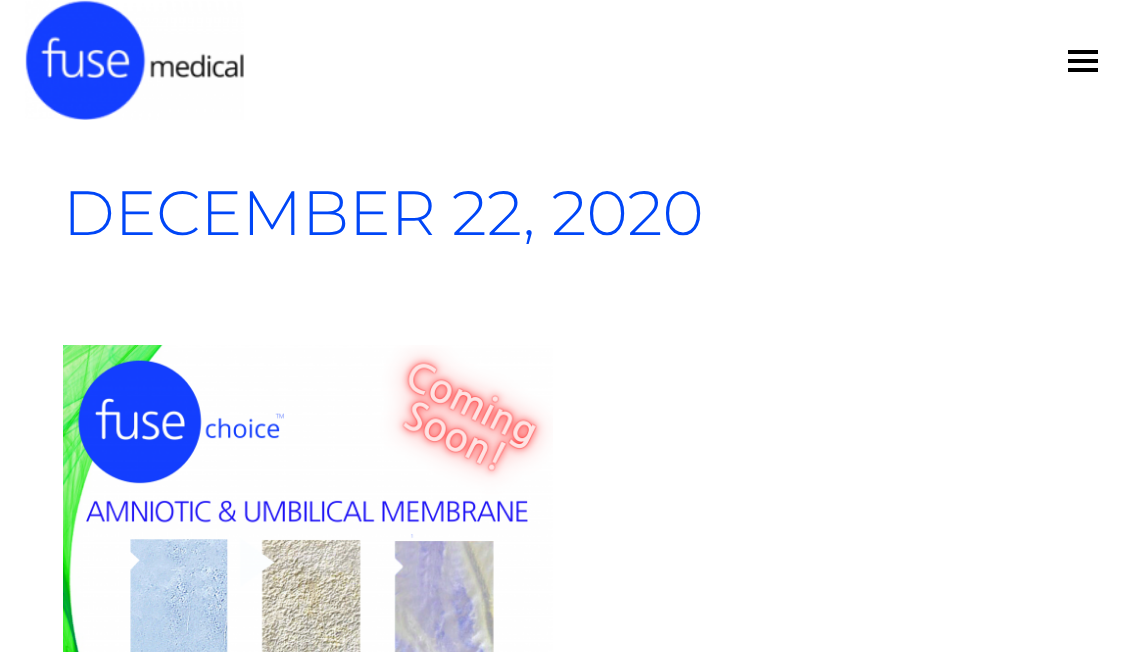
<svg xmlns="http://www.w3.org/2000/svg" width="1132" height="652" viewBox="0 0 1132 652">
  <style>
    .t1 { font: 300 62.5px Montserrat; fill: #0046f7; }
  </style>
  <rect width="100%" height="100%" fill="#fff"/>
  <image x="25" y="0" width="219" height="120" href="images/1.png"/>
  <rect x="1068" y="50" width="30" height="4" fill="#000"/>
  <rect x="1068" y="59" width="30" height="4" fill="#000"/>
  <rect x="1068" y="68" width="30" height="4" fill="#000"/>
  <text x="63" y="235" class="t1">DECEMBER 22, 2020</text>
  <image x="63" y="345" width="490" height="307" href="images/2.png"/>
</svg>
